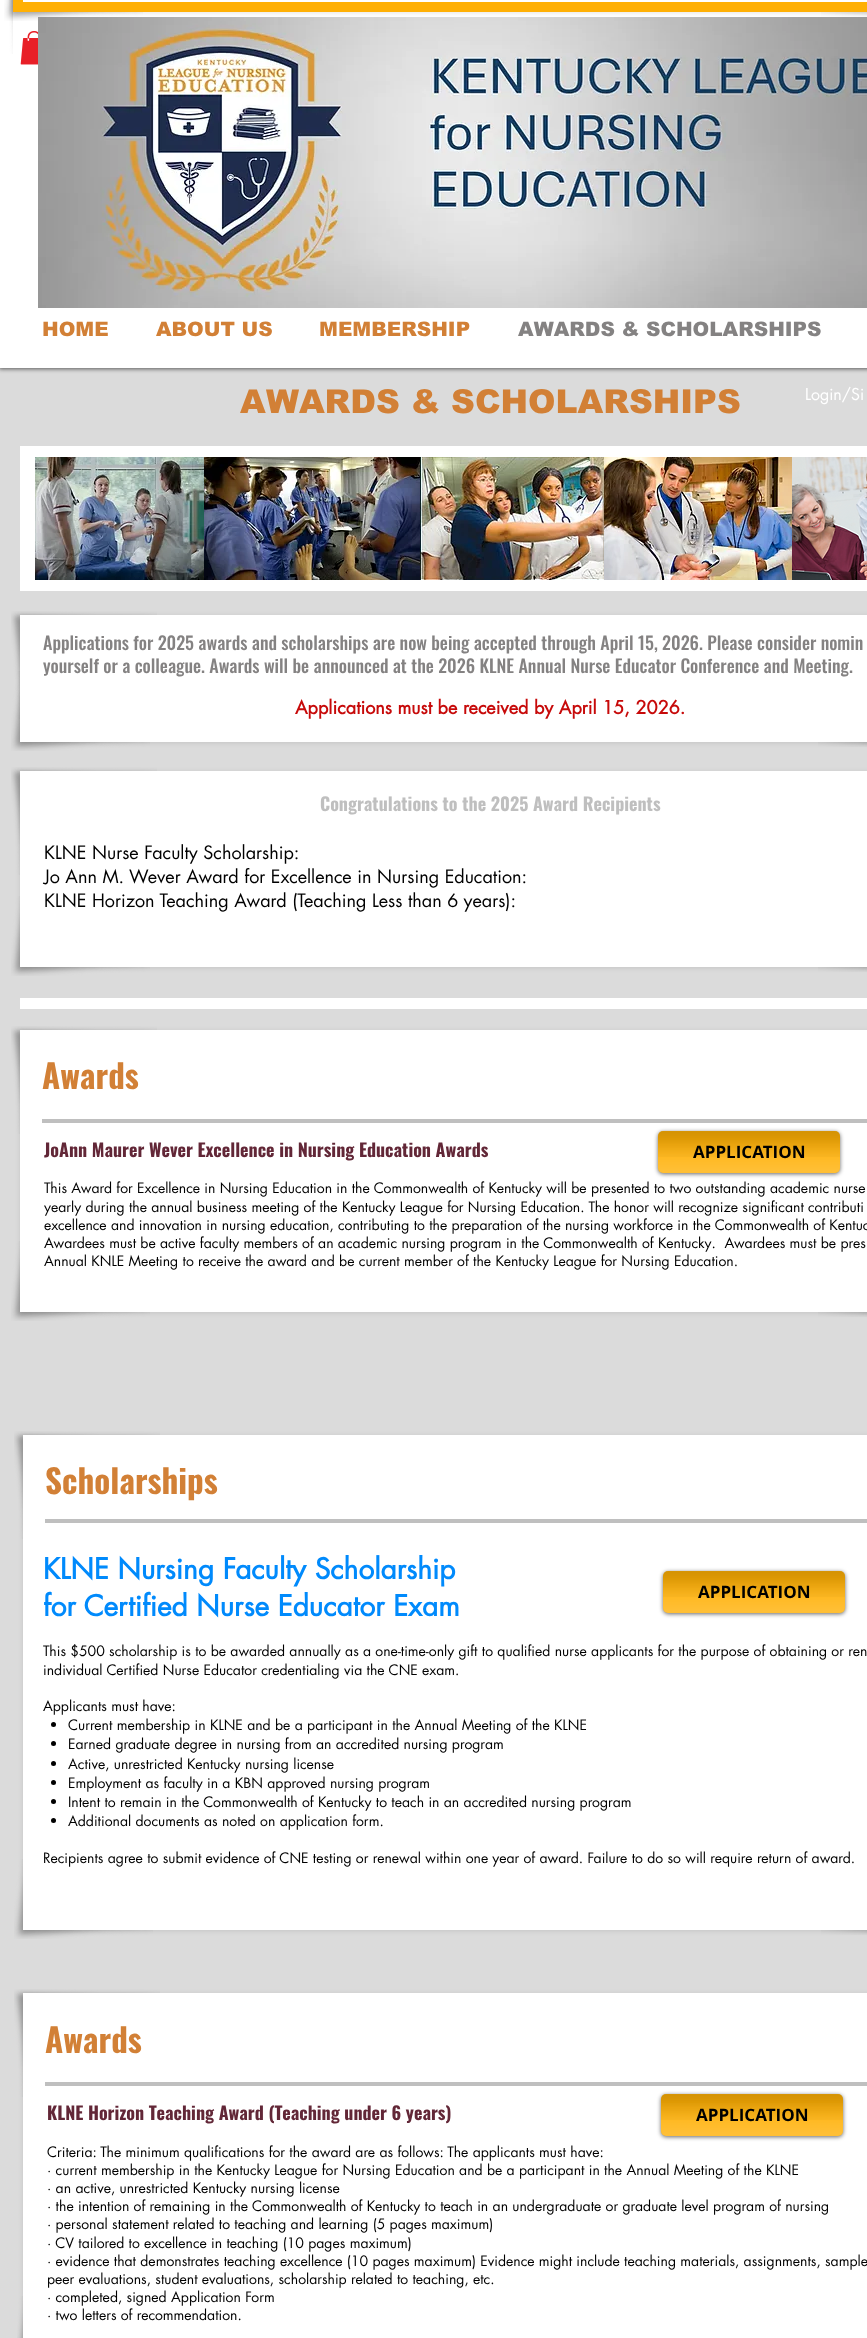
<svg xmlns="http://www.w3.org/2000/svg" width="867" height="2338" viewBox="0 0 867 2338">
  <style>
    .t1 { font: 900 20px arial; fill: #d28036; }
    .t2 { font: 900 20px arial; fill: #848282; }
    .t3 { font: 900 33px arial; fill: #d28036; }
    .t4 { font: 16px futura; fill: #fff; }
    .t5 { font: 500 18px Oswald; fill: #848282; }
    .t6 { font: bold 18px futura; fill: #c70a0a; }
    .t7 { font: bold 18px Oswald; fill: #bfbfbf; }
    .t8 { font: 18px futura; fill: #000; }
    .t9 { font: bold 33px Oswald; fill: #d28036; }
    .t10 { font: bold 18px Oswald; fill: #622737; }
    .t11 { font: 14px futura; fill: #000; }
    .t12 { font: bold 17px Open Sans; fill: #000; }
    .t13 { font: bold 28px futura; fill: #008afc; }
  </style>
  <defs>
    <clipPath id="clip1"><path d="M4 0H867V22H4ZM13-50H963V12H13Z" clip-rule="evenodd"/></clipPath>
  </defs>
  <rect width="100%" height="100%" fill="#dbdbdb"/>
  <rect x="-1" y="1" width="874" height="368" fill="#00000099" filter="blur(2px)"/>
  <rect x="0" y="0" width="867" height="368" fill="#fff"/>
  <image x="9" y="0" width="4" height="54" href="images/2.png"/>
  <image x="4" y="0" width="139" height="21" href="images/1.png"/>
  <image x="821" y="12" width="46" height="5" href="images/3.png"/>
  <g clip-path="url(#clip1)">
    <rect x="13" y="-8" width="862" height="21" fill="#0000001a" filter="blur(2.5px)"/>
  </g>
  <rect x="18" y="-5" width="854" height="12" fill="none" stroke="#ffb005" stroke-width="10"/>
  <image x="20" y="31" width="18" height="34" href="images/4.png"/>
  <image x="38" y="17" width="829" height="291" href="images/5.png"/>
  <text x="42" y="336" class="t1">HOME</text>
  <text x="156" y="336" class="t1">ABOUT US</text>
  <text x="319" y="336" class="t1">MEMBERSHIP</text>
  <text x="518" y="336" class="t2">AWARDS &amp; SCHOLARSHIPS</text>
  <text x="240" y="413" class="t3">AWARDS &amp; SCHOLARSHIPS</text>
  <text x="805" y="400" class="t4">Login/Si</text>
  <rect x="20" y="446" width="847" height="11" fill="#fff"/>
  <rect x="20" y="457" width="15" height="123" fill="#fff"/>
  <image x="35" y="457" width="169" height="123" href="images/6.png"/>
  <image x="204" y="457" width="216" height="123" href="images/7.png"/>
  <image x="420" y="457" width="184" height="123" href="images/8.png"/>
  <image x="604" y="457" width="188" height="123" href="images/9.png"/>
  <image x="792" y="457" width="75" height="123" href="images/10.png"/>
  <rect x="20" y="580" width="847" height="11" fill="#fff"/>
  <image x="11" y="611" width="146" height="108" href="images/11.png"/>
  <image x="11" y="671" width="139" height="80" href="images/12.png"/>
  <image x="818" y="742" width="49" height="5" href="images/13.png"/>
  <rect x="20" y="616" width="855" height="127" fill="#0000001a" filter="blur(2.5px)"/>
  <rect x="20" y="615" width="847" height="127" fill="#fff"/>
  <text x="43" y="650" class="t5">Applications for 2025 awards and scholarships are now being accepted through April 15, 2026. Please consider nomin</text>
  <text x="43" y="673" class="t5">yourself or a colleague. Awards will be announced at the 2026 KLNE Annual Nurse Educator Conference and Meeting.</text>
  <text x="295" y="714" class="t6">Applications must be received by April 15, 2026.</text>
  <image x="11" y="767" width="146" height="108" href="images/11.png"/>
  <image x="11" y="896" width="139" height="80" href="images/14.png"/>
  <image x="818" y="967" width="49" height="5" href="images/13.png"/>
  <rect x="20" y="772" width="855" height="196" fill="#0000001a" filter="blur(2.5px)"/>
  <rect x="20" y="771" width="847" height="196" fill="#fff"/>
  <text x="320" y="811" class="t7">Congratulations to the 2025 Award Recipients</text>
  <text x="44" y="859" class="t8">KLNE Nurse Faculty Scholarship:</text>
  <text x="44" y="883" class="t8">Jo Ann M. Wever Award for Excellence in Nursing Education:</text>
  <text x="44" y="907" class="t8">KLNE Horizon Teaching Award (Teaching Less than 6 years):</text>
  <rect x="20" y="998" width="847" height="11" fill="#fff"/>
  <image x="11" y="1026" width="146" height="108" href="images/11.png"/>
  <image x="11" y="1241" width="139" height="80" href="images/14.png"/>
  <image x="818" y="1312" width="49" height="5" href="images/13.png"/>
  <rect x="20" y="1031" width="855" height="282" fill="#0000001a" filter="blur(2.5px)"/>
  <rect x="20" y="1030" width="847" height="282" fill="#fff"/>
  <text x="42" y="1089" class="t9">Awards</text>
  <rect x="42" y="1119" width="825" height="4" fill="#bfbfbf"/>
  <text x="44" y="1157" class="t10">JoAnn Maurer Wever Excellence in Nursing Education Awards</text>
  <text x="44" y="1193" class="t11">This Award for Excellence in Nursing Education in the Commonwealth of Kentucky will be presented to two outstanding academic nurse</text>
  <text x="44" y="1212" class="t11">yearly during the annual business meeting of the Kentucky League for Nursing Education. The honor will recognize significant contributi</text>
  <text x="44" y="1230" class="t11">excellence and innovation in nursing education, contributing to the preparation of the nursing workforce in the Commonwealth of Kentuc</text>
  <text x="44" y="1248" class="t11" xml:space="preserve">Awardees must be active faculty members of an academic nursing program in the Commonwealth of Kentucky.  Awardees must be pres</text>
  <text x="44" y="1266" class="t11">Annual KNLE Meeting to receive the award and be current member of the Kentucky League for Nursing Education.</text>
  <rect x="658" y="1132" width="182" height="42" rx="5" fill="#00000099" filter="blur(2px)"/>
  <rect x="658" y="1131" width="182" height="42" rx="5" fill="#ffb005"/>
  <image x="658" y="1131" width="182" height="26" href="images/15.png"/>
  <image x="658" y="1140" width="182" height="33" href="images/16.png"/>
  <text x="693" y="1158" class="t12">APPLICATION</text>
  <image x="14" y="1431" width="146" height="108" href="images/11.png"/>
  <image x="14" y="1859" width="139" height="80" href="images/14.png"/>
  <image x="821" y="1930" width="46" height="5" href="images/17.png"/>
  <rect x="23" y="1436" width="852" height="495" fill="#0000001a" filter="blur(2.5px)"/>
  <rect x="23" y="1435" width="844" height="495" fill="#fff"/>
  <text x="45" y="1494" class="t9">Scholarships</text>
  <rect x="45" y="1519" width="822" height="4" fill="#bfbfbf"/>
  <text x="43" y="1579" class="t13">KLNE Nursing Faculty Scholarship</text>
  <text x="43" y="1616" class="t13">for Certified Nurse Educator Exam</text>
  <text x="43" y="1656" class="t11">This $500 scholarship is to be awarded annually as a one-time-only gift to qualified nurse applicants for the purpose of obtaining or ren</text>
  <text x="43" y="1675" class="t11">individual Certified Nurse Educator credentialing via the CNE exam.</text>
  <text x="43" y="1711" class="t11">Applicants must have:</text>
  <circle cx="53.5" cy="1724.5" r="2.5" fill="#000"/>
  <text x="68" y="1730" class="t11">Current membership in KLNE and be a participant in the Annual Meeting of the KLNE</text>
  <circle cx="53.5" cy="1743.5" r="2.5" fill="#000"/>
  <text x="68" y="1749" class="t11">Earned graduate degree in nursing from an accredited nursing program</text>
  <circle cx="53.5" cy="1763.5" r="2.5" fill="#000"/>
  <text x="68" y="1769" class="t11">Active, unrestricted Kentucky nursing license</text>
  <circle cx="53.5" cy="1782.5" r="2.5" fill="#000"/>
  <text x="68" y="1788" class="t11">Employment as faculty in a KBN approved nursing program</text>
  <circle cx="53.5" cy="1801.5" r="2.5" fill="#000"/>
  <text x="68" y="1807" class="t11">Intent to remain in the Commonwealth of Kentucky to teach in an accredited nursing program</text>
  <circle cx="53.5" cy="1820.5" r="2.5" fill="#000"/>
  <text x="68" y="1826" class="t11">Additional documents as noted on application form.</text>
  <text x="43" y="1863" class="t11">Recipients agree to submit evidence of CNE testing or renewal within one year of award. Failure to do so will require return of award.</text>
  <rect x="663" y="1572" width="182" height="42" rx="5" fill="#00000099" filter="blur(2px)"/>
  <rect x="663" y="1571" width="182" height="42" rx="5" fill="#ffb005"/>
  <image x="663" y="1571" width="182" height="26" href="images/15.png"/>
  <image x="663" y="1580" width="182" height="33" href="images/16.png"/>
  <text x="698" y="1598" class="t12">APPLICATION</text>
  <image x="14" y="1989" width="146" height="108" href="images/11.png"/>
  <image x="17" y="2296" width="6" height="42" href="images/18.png"/>
  <rect x="23" y="1994" width="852" height="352" fill="#0000001a" filter="blur(2.5px)"/>
  <rect x="23" y="1993" width="844" height="345" fill="#fff"/>
  <text x="45" y="2053" class="t9">Awards</text>
  <rect x="45" y="2082" width="822" height="4" fill="#bfbfbf"/>
  <text x="47" y="2120" class="t10">KLNE Horizon Teaching Award (Teaching under 6 years)</text>
  <text x="47" y="2157" class="t11">Criteria: The minimum qualifications for the award are as follows: The applicants must have:</text>
  <text x="47" y="2175" class="t11">· current membership in the Kentucky League for Nursing Education and be a participant in the Annual Meeting of the KLNE</text>
  <text x="47" y="2193" class="t11">· an active, unrestricted Kentucky nursing license</text>
  <text x="47" y="2211" class="t11">· the intention of remaining in the Commonwealth of Kentucky to teach in an undergraduate or graduate level program of nursing</text>
  <text x="47" y="2229" class="t11">· personal statement related to teaching and learning (5 pages maximum)</text>
  <text x="47" y="2248" class="t11">· CV tailored to excellence in teaching (10 pages maximum)</text>
  <text x="47" y="2266" class="t11">· evidence that demonstrates teaching excellence (10 pages maximum) Evidence might include teaching materials, assignments, sample</text>
  <text x="47" y="2284" class="t11">peer evaluations, student evaluations, scholarship related to teaching, etc.</text>
  <text x="47" y="2302" class="t11">· completed, signed Application Form</text>
  <text x="47" y="2320" class="t11">· two letters of recommendation.</text>
  <rect x="661" y="2095" width="182" height="42" rx="5" fill="#00000099" filter="blur(2px)"/>
  <rect x="661" y="2094" width="182" height="42" rx="5" fill="#ffb005"/>
  <image x="661" y="2094" width="182" height="26" href="images/15.png"/>
  <image x="661" y="2103" width="182" height="33" href="images/16.png"/>
  <text x="696" y="2121" class="t12">APPLICATION</text>
</svg>
